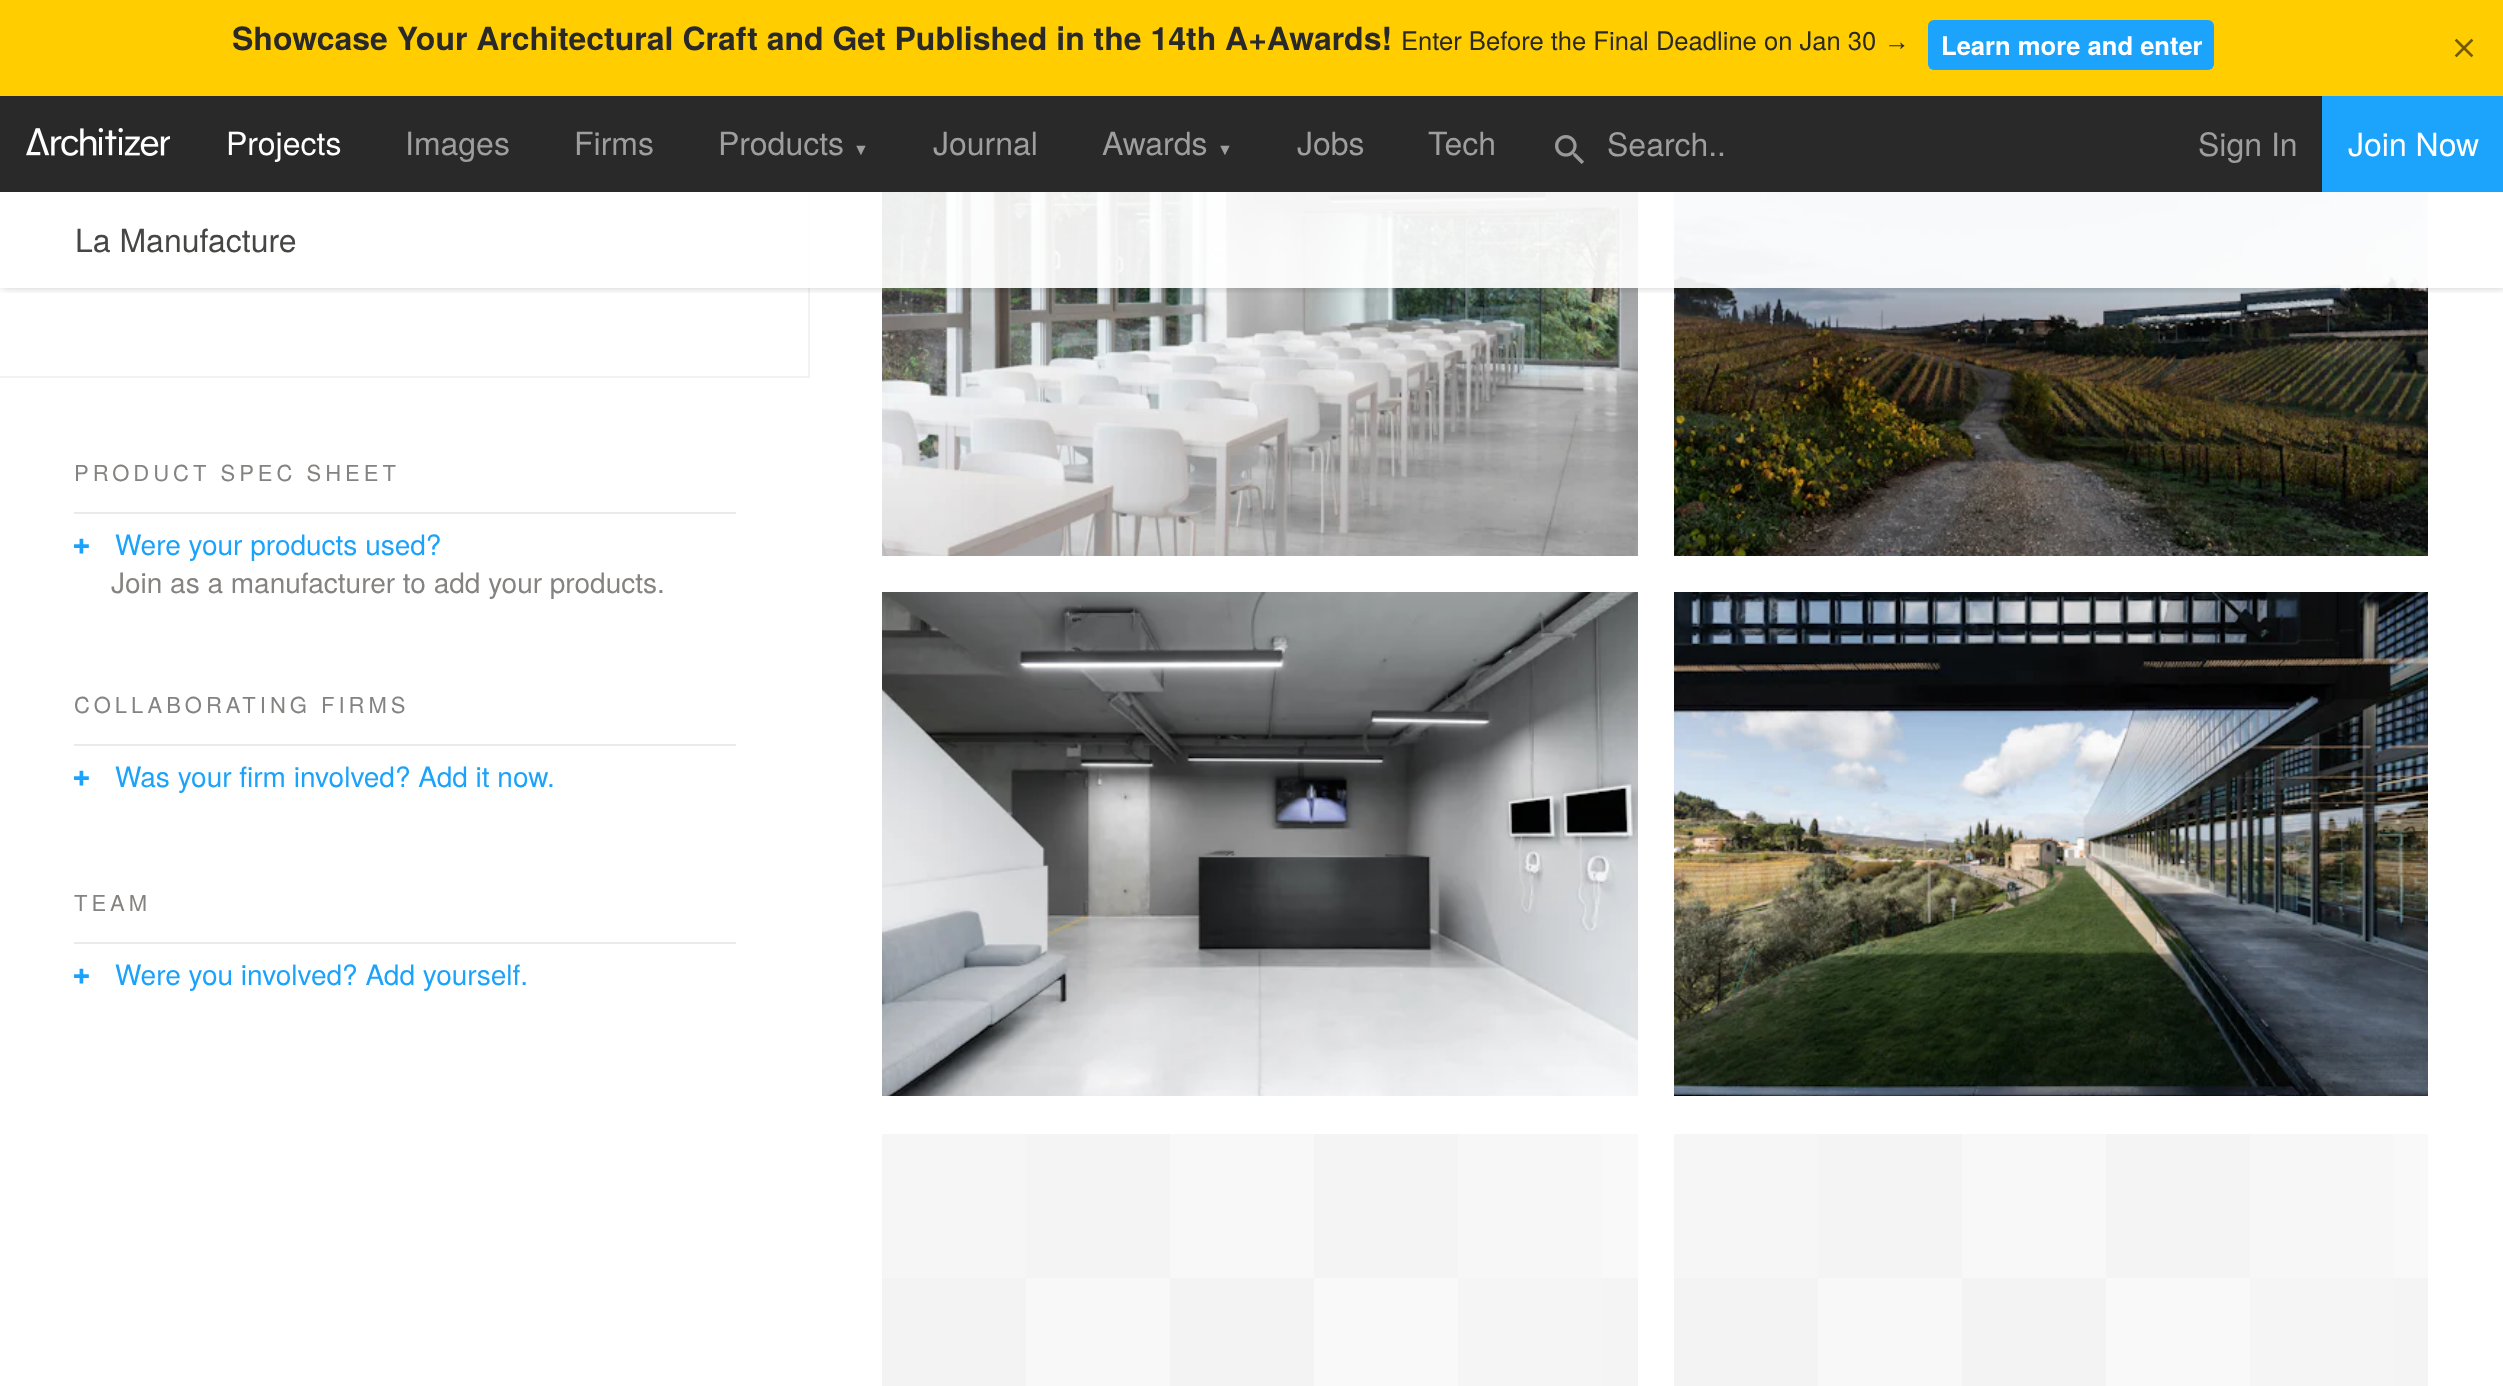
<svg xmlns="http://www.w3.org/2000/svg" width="2503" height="1386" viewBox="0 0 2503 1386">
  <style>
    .t1 { font: bold 32px TeX Gyre Heros; fill: #292929; }
    .t2 { font: 25.6px TeX Gyre Heros; fill: #292929; }
    .t3 { font: 25.6px Liberation Sans; fill: #292929; }
    .t4 { font: bold 25.6px TeX Gyre Heros; fill: #fff; }
    .t5 { font: 32px TeX Gyre Heros; fill: #fff; }
    .t6 { font: 32px TeX Gyre Heros; fill: #9e9e9e; }
    .t7 { font: 16px Liberation Sans; fill: #9e9e9e; }
    .t8 { font: 32px TeX Gyre Heros; fill: #474645; }
    .t9 { font: 22px TeX Gyre Heros; letter-spacing: 4px; fill: #858381; }
    .t10 { font: 28px TeX Gyre Heros; fill: #1ba2fa; }
    .t11 { font: 28px TeX Gyre Heros; fill: #858381; }
  </style>
  <defs>
    <clipPath id="clip1"><rect x="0" y="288" width="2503" height="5"/></clipPath>
  </defs>
  <rect width="100%" height="100%" fill="#fff"/>
  <rect x="0" y="0" width="2503" height="96" fill="#ffcd00"/>
  <text x="232" y="50" class="t1">Showcase Your Architectural Craft and Get Published in the 14th A+Awards!</text>
  <text x="1401" y="50" class="t2">Enter Before the Final Deadline on Jan 30</text>
  <text x="1884" y="50" class="t3">→</text>
  <rect x="1928" y="20" width="286" height="50" rx="6" fill="#1ca3fc"/>
  <text x="1941" y="55" class="t4">Learn more and enter</text>
  <image x="2454" y="38" width="20" height="20" href="images/1.png"/>
  <rect x="808" y="192" width="2" height="186" fill="#f2f2f2"/>
  <image x="882" y="192" width="756" height="364" href="images/5.png"/>
  <image x="1674" y="192" width="754" height="364" href="images/6.png"/>
  <g clip-path="url(#clip1)">
    <rect x="2" y="192" width="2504" height="96" fill="#00000033" filter="blur(4px)"/>
  </g>
  <rect x="0" y="96" width="2322" height="96" fill="#292929"/>
  <image x="26" y="128" width="144" height="28" href="images/2.png"/>
  <text x="226" y="155" class="t5">Projects</text>
  <text x="405" y="155" class="t6">Images</text>
  <text x="574" y="155" class="t6">Firms</text>
  <text x="718" y="155" class="t6">Products</text>
  <text x="853" y="155" class="t7">▼</text>
  <text x="933" y="155" class="t6">Journal</text>
  <text x="1102" y="155" class="t6">Awards</text>
  <text x="1217" y="155" class="t7">▼</text>
  <text x="1297" y="155" class="t6">Jobs</text>
  <text x="1428" y="155" class="t6">Tech</text>
  <image x="1555" y="135" width="29" height="29" href="images/3.png"/>
  <text x="1607" y="156" class="t6">Search..</text>
  <text x="2198" y="156" class="t6">Sign In</text>
  <rect x="2322" y="96" width="181" height="96" fill="#1ca3fc"/>
  <text x="2348" y="156" class="t5">Join Now</text>
  <rect x="808" y="192" width="1620" height="96" fill="#ffffffeb"/>
  <text x="75" y="252" class="t8">La Manufacture</text>
  <rect x="0" y="376" width="810" height="2" fill="#f2f2f2"/>
  <text x="74" y="481" class="t9">PRODUCT SPEC SHEET</text>
  <rect x="74" y="512" width="662" height="2" fill="#ebeae8"/>
  <image x="74" y="538" width="15" height="16" href="images/4.png"/>
  <text x="115" y="555" class="t10">Were your products used?</text>
  <text x="111" y="593" class="t11">Join as a manufacturer to add your products.</text>
  <text x="74" y="713" class="t9">COLLABORATING FIRMS</text>
  <rect x="74" y="744" width="662" height="2" fill="#ebeae8"/>
  <image x="74" y="770" width="15" height="16" href="images/4.png"/>
  <text x="115" y="787" class="t10">Was your firm involved? Add it now.</text>
  <text x="74" y="911" class="t9">TEAM</text>
  <rect x="74" y="942" width="662" height="2" fill="#ebeae8"/>
  <image x="74" y="968" width="15" height="16" href="images/4.png"/>
  <text x="115" y="985" class="t10">Were you involved? Add yourself.</text>
  <image x="882" y="592" width="756" height="504" href="images/7.png"/>
  <image x="1674" y="592" width="754" height="504" href="images/8.png"/>
  <image x="882" y="1134" width="756" height="252" href="images/9.png"/>
  <image x="1674" y="1134" width="754" height="252" href="images/10.png"/>
</svg>
